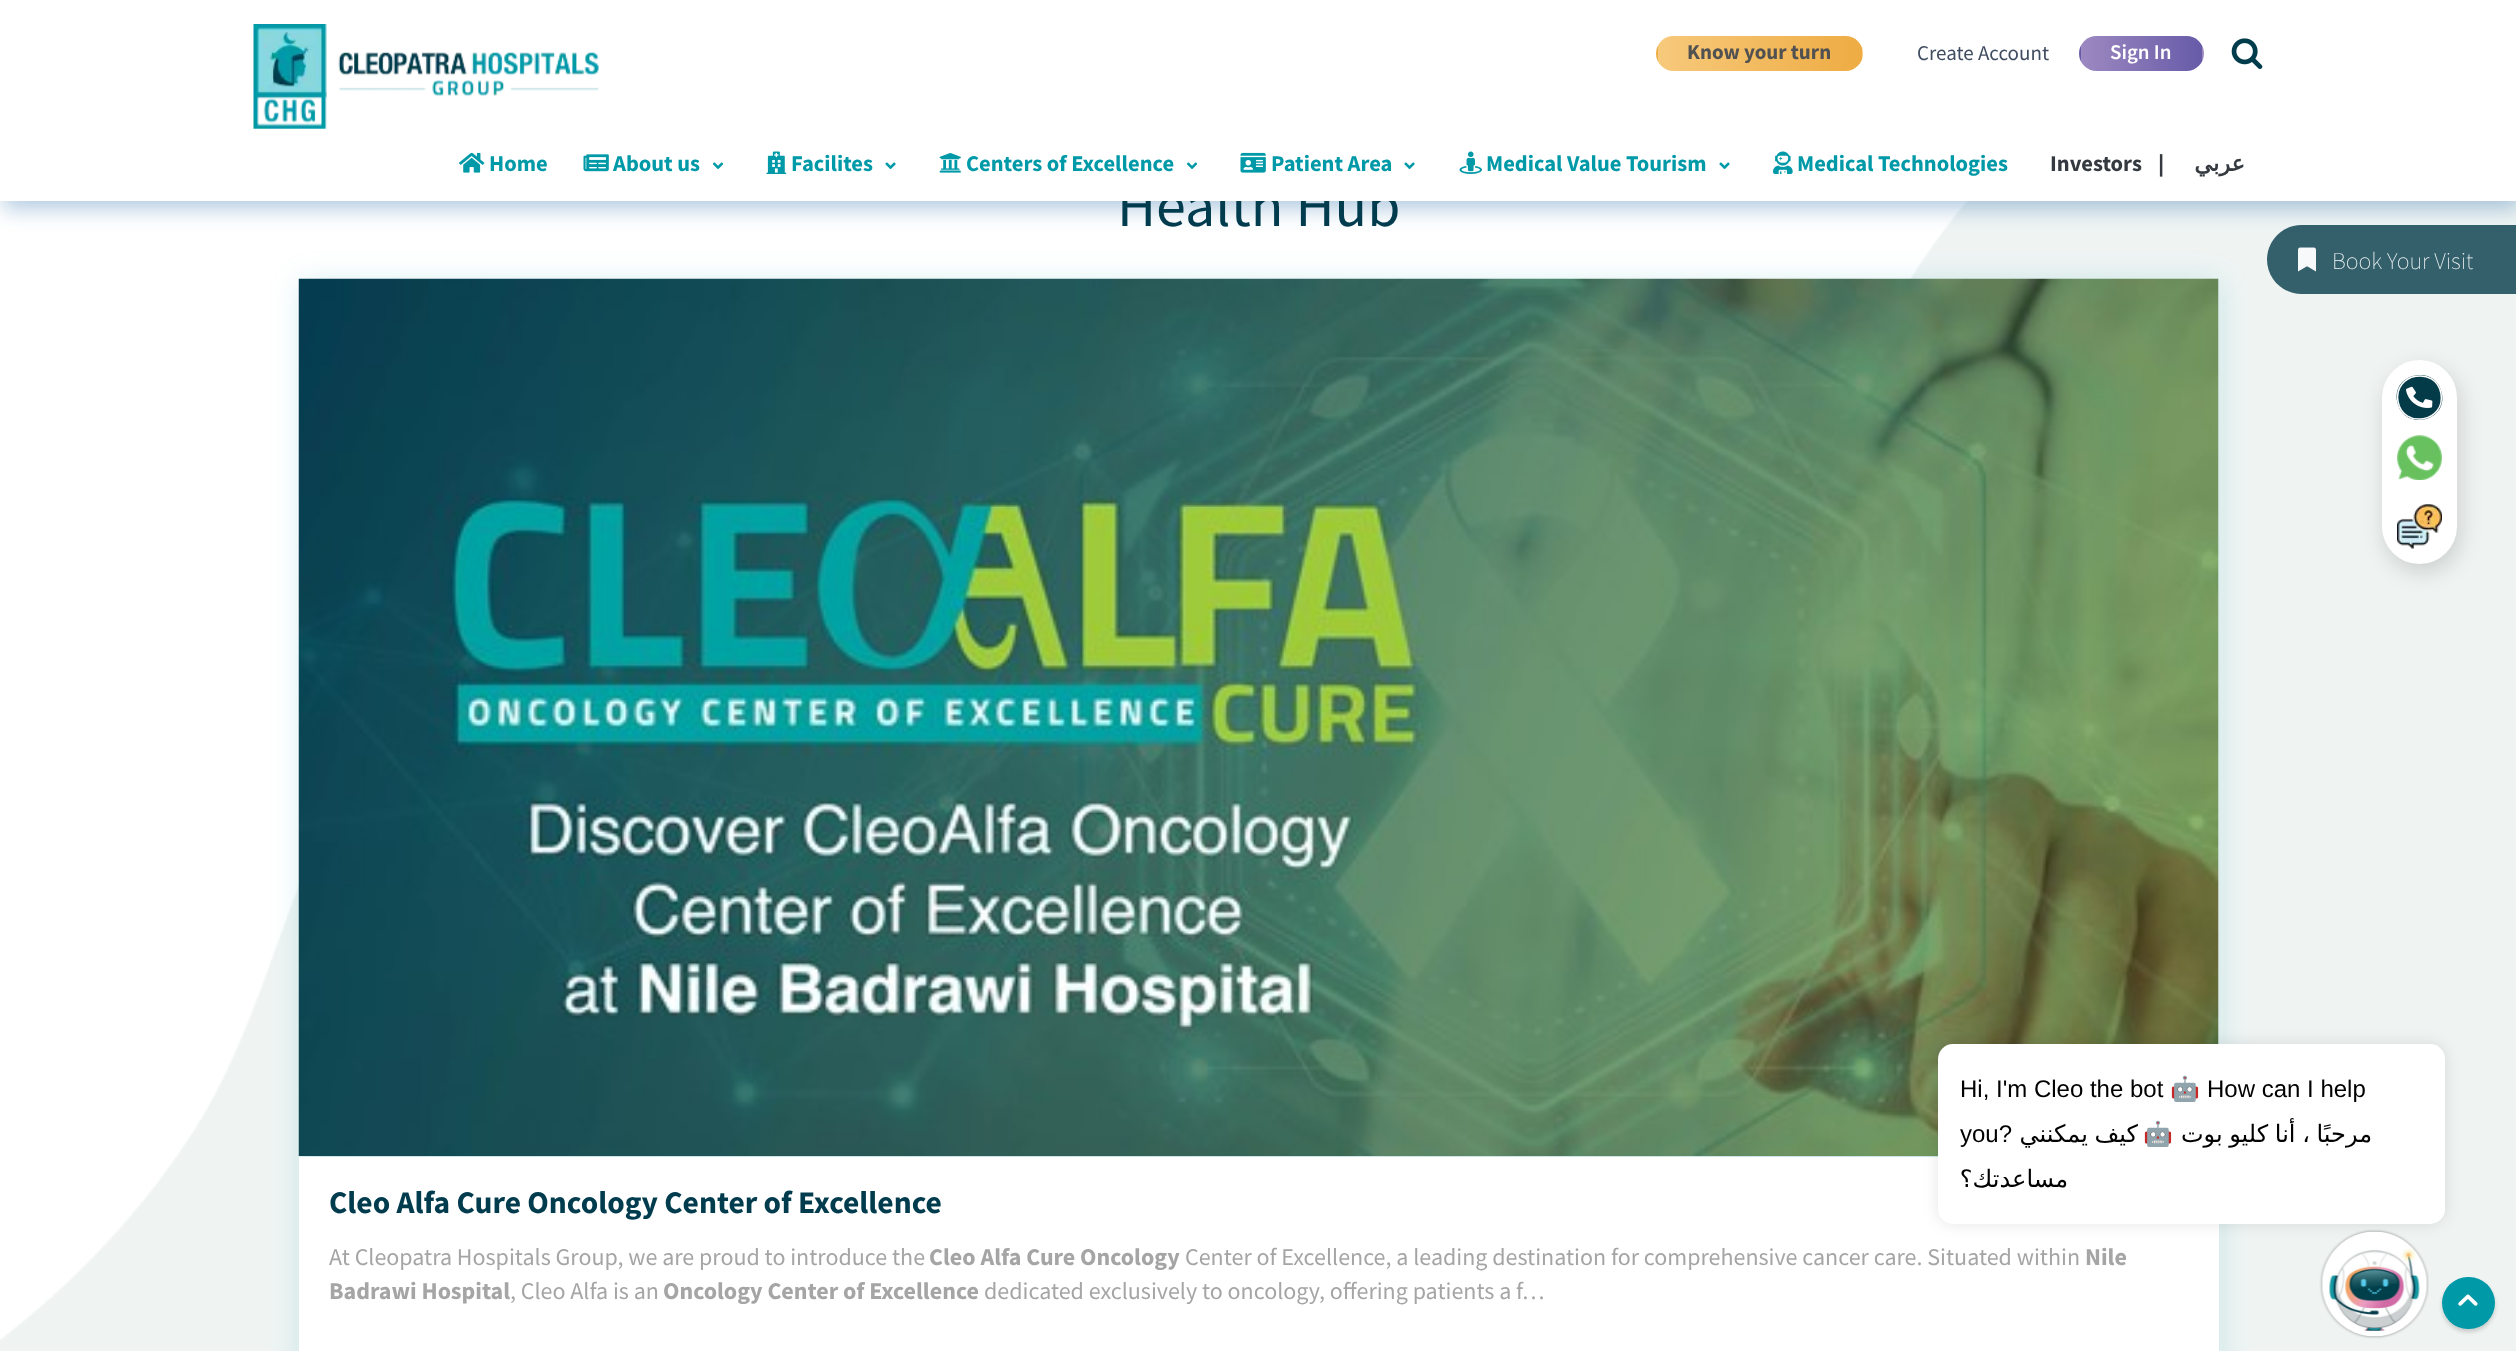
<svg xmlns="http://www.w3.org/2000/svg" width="2516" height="1351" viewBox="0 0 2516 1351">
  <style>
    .t1 { font: 60px Source Sans Pro; fill: #003c4e; }
    .t2 { font: bold 21px Source Sans Pro; fill: #515151; }
    .t3 { font: 21px Source Sans Pro; fill: #404d60; }
    .t4 { font: 600 21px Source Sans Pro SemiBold; fill: #fff; }
    .t5 { font: bold 22.5px Source Sans Pro; fill: #0099a8; }
    .t6 { font: bold 22.5px Source Sans Pro; fill: #343a40; }
    .t7 { font: 900 22.5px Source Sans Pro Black; fill: #343a40; }
    .t8 { font: bold 22.5px DejaVu Sans; direction: rtl; fill: #343a40; }
    .t9 { font: bold 31.5px Source Sans Pro; fill: #003c4e; }
    .t10 { font: 24px Source Sans Pro; fill: #a5a5a5; }
    .t11 { font: bold 24px Source Sans Pro; fill: #a5a5a5; }
    .t12 { font: 200 24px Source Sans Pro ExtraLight; fill: #f8f9fa; }
    .t13 { font: 24px Liberation Sans; fill: #000; }
    .t14 { font: 24px Noto Color Emoji; fill: #000; }
    .t15 { font: 24px DejaVu Sans; direction: rtl; fill: #000; }
    .t16 { font: 24px Noto Color Emoji; direction: rtl; fill: #000; }
  </style>
  <defs>
    <clipPath id="clip1"><rect x="1656" y="36" width="207" height="35" rx="17.5"/></clipPath>
    <linearGradient id="g1" gradientUnits="userSpaceOnUse" x1="1454" y1="53" x2="1658" y2="53"><stop offset="0" stop-color="#f7c97b"/><stop offset="1" stop-color="#eeac43"/></linearGradient>
    <linearGradient id="g2" gradientUnits="userSpaceOnUse" x1="1658" y1="53" x2="1862" y2="53"><stop offset="0" stop-color="#f7c97b"/><stop offset="1" stop-color="#eeac43"/></linearGradient>
    <linearGradient id="g3" gradientUnits="userSpaceOnUse" x1="1862" y1="53" x2="2066" y2="53"><stop offset="0" stop-color="#f7c97b"/><stop offset="1" stop-color="#eeac43"/></linearGradient>
    <clipPath id="clip2"><rect x="2079" y="36" width="125" height="35" rx="17.5"/></clipPath>
    <linearGradient id="g4" gradientUnits="userSpaceOnUse" x1="1959" y1="53" x2="2081" y2="53"><stop offset="0" stop-color="#9d89c1"/><stop offset="1" stop-color="#675ba8"/></linearGradient>
    <linearGradient id="g5" gradientUnits="userSpaceOnUse" x1="2081" y1="53" x2="2202" y2="53"><stop offset="0" stop-color="#9d89c1"/><stop offset="1" stop-color="#675ba8"/></linearGradient>
    <linearGradient id="g6" gradientUnits="userSpaceOnUse" x1="2202" y1="53" x2="2324" y2="53"><stop offset="0" stop-color="#9d89c1"/><stop offset="1" stop-color="#675ba8"/></linearGradient>
  </defs>
  <rect width="100%" height="100%" fill="#fff"/>
  <image x="0" y="201" width="2516" height="1150" href="images/12.png"/>
  <path d="M2301.5 225H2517V294H2301.5C2282.5 294 2267 278.5 2267 259.5C2267 240.5 2282.5 225 2301.5 225Z" fill="#33606b"/>
  <rect x="3" y="8" width="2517" height="201" fill="#00529c4d" filter="blur(10.5px)"/>
  <text x="1117" y="226" class="t1">Health Hub</text>
  <rect x="0" y="0" width="2516" height="201" fill="#fff"/>
  <image x="253" y="24" width="346" height="105" href="images/1.png"/>
  <g clip-path="url(#clip1)">
    <rect x="1656" y="45" width="2" height="17" fill="url(#g1)"/>
    <rect x="1658" y="36" width="204" height="35" fill="url(#g2)"/>
    <rect x="1862" y="48" width="1" height="11" fill="url(#g3)"/>
  </g>
  <text x="1687" y="59" class="t2">Know your turn</text>
  <text x="1917" y="60" class="t3">Create Account</text>
  <g clip-path="url(#clip2)">
    <rect x="2079" y="45" width="2" height="17" fill="url(#g4)"/>
    <rect x="2081" y="36" width="121" height="35" fill="url(#g5)"/>
    <rect x="2202" y="45" width="2" height="17" fill="url(#g6)"/>
  </g>
  <text x="2110" y="59" class="t4">Sign In</text>
  <image x="2231" y="38" width="32" height="31" href="images/2.png"/>
  <image x="459" y="152" width="26" height="21" href="images/3.png"/>
  <text x="489" y="171" class="t5">Home</text>
  <image x="583" y="154" width="26" height="18" href="images/4.png"/>
  <text x="613" y="171" class="t5">About us</text>
  <image x="712" y="162" width="12" height="7" href="images/5.png"/>
  <image x="766" y="151" width="21" height="23" href="images/6.png"/>
  <text x="791" y="171" class="t5">Facilites</text>
  <image x="885" y="162" width="11" height="7" href="images/7.png"/>
  <image x="939" y="152" width="22" height="21" href="images/8.png"/>
  <text x="966" y="171" class="t5">Centers of Excellence</text>
  <image x="1186" y="162" width="12" height="7" href="images/5.png"/>
  <image x="1240" y="152" width="26" height="21" href="images/9.png"/>
  <text x="1271" y="171" class="t5">Patient Area</text>
  <image x="1404" y="162" width="11" height="7" href="images/7.png"/>
  <image x="1459" y="151" width="23" height="23" href="images/10.png"/>
  <text x="1486" y="171" class="t5">Medical Value Tourism</text>
  <image x="1719" y="162" width="11" height="7" href="images/7.png"/>
  <image x="1773" y="151" width="20" height="23" href="images/11.png"/>
  <text x="1797" y="171" class="t5">Medical Technologies</text>
  <text x="2050" y="171" class="t6">Investors</text>
  <text x="2158" y="171" class="t7">|</text>
  <text x="2245" y="171" class="t8">عربي</text>
  <rect x="300" y="281" width="1920" height="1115" fill="#0099a826" filter="blur(15px)"/>
  <image x="298" y="278" width="1921" height="878" href="images/13.png"/>
  <rect x="299" y="1157" width="1920" height="194" fill="#fff"/>
  <text x="329" y="1213" class="t9">Cleo Alfa Cure Oncology Center of Excellence</text>
  <text x="329" y="1265" class="t10">At Cleopatra Hospitals Group, we are proud to introduce the</text>
  <text x="929" y="1265" class="t11">Cleo Alfa Cure Oncology</text>
  <text x="1185" y="1265" class="t10">Center of Excellence, a leading destination for comprehensive cancer care. Situated within</text>
  <text x="2085" y="1265" class="t11">Nile</text>
  <text x="329" y="1299" class="t11">Badrawi Hospital</text>
  <text x="510" y="1299" class="t10">, Cleo Alfa is an</text>
  <text x="663" y="1299" class="t11">Oncology Center of Excellence</text>
  <text x="984" y="1299" class="t10">dedicated exclusively to oncology, offering patients a f…</text>
  <image x="2298" y="247" width="18" height="25" href="images/14.png"/>
  <text x="2332" y="269" class="t12">Book Your Visit</text>
  <rect x="2385" y="368" width="75" height="204" rx="37.5" fill="#00000026" filter="blur(10.5px)"/>
  <rect x="2382" y="360" width="75" height="204" rx="37.5" fill="#fff"/>
  <path d="M2442 394C2447 423 2402 431 2397 401C2392 372 2437 364 2442 394Z" fill="#043b49"/>
  <path d="M2441 393.5C2446 422 2403 429.5 2398 401.5C2393 373 2436 365.5 2441 393.5Z" fill="none" stroke="#fff" stroke-width="1.5"/>
  <image x="2406" y="386" width="27" height="22" href="images/15.png"/>
  <image x="2397" y="435" width="45" height="45" href="images/16.png"/>
  <image x="2397" y="504" width="45" height="45" href="images/17.png"/>
  <rect x="1938" y="1044" width="507" height="180" rx="15" fill="#0000001a" filter="blur(7.5px)"/>
  <rect x="1938" y="1044" width="507" height="180" rx="15" fill="#fff"/>
  <text x="1960" y="1097" class="t13">Hi, I'm Cleo the bot</text>
  <text x="2170" y="1097" class="t14">🤖</text>
  <text x="2207" y="1097" class="t13">How can I help</text>
  <text x="1960" y="1142" class="t13">you?</text>
  <text x="2138" y="1142" word-spacing="-1" class="t15">كيف يمكنني</text>
  <text x="2173" y="1142" class="t16">🤖</text>
  <text x="2372" y="1142" word-spacing="-1" class="t15">مرحبًا ، أنا كليو بوت</text>
  <text x="2068" y="1187" class="t15">مساعدتك؟</text>
  <image x="2319" y="1229" width="110" height="110" href="images/18.png"/>
  <rect x="2442" y="1280" width="53" height="52" rx="26" fill="#0000002b" filter="blur(2px)"/>
  <rect x="2442" y="1277" width="53" height="52" rx="26" fill="#0099a8"/>
  <image x="2458" y="1294" width="20" height="12" href="images/19.png"/>
</svg>
